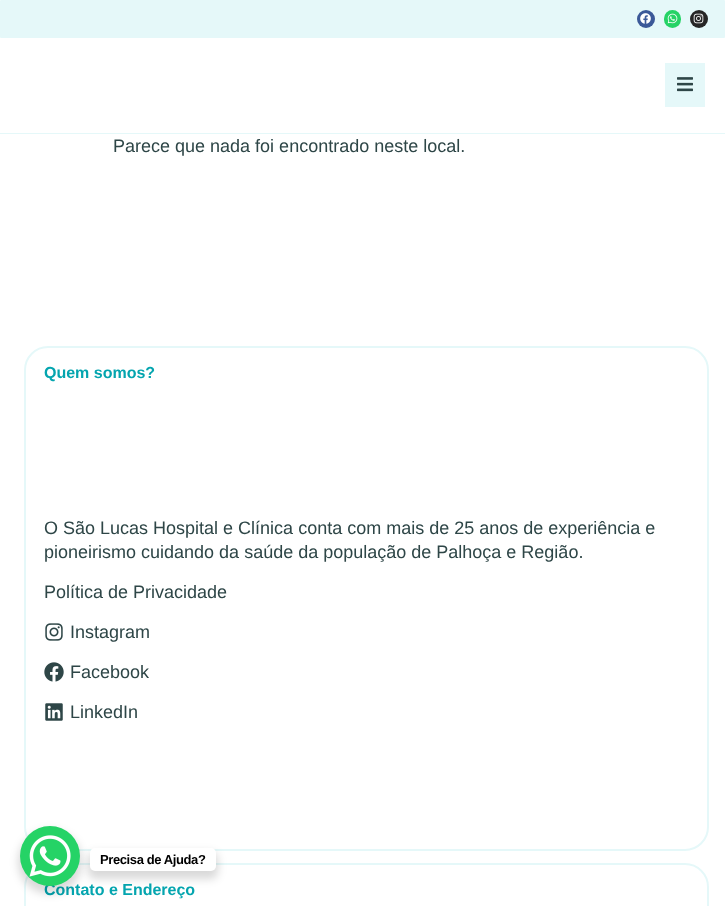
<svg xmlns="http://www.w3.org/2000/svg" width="725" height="906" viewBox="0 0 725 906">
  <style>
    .t1 { font: 18px Liberation Sans; fill: #2e4647; }
    .t2 { font: bold 16px Liberation Sans; fill: #04a5af; }
    .t3 { font: bold 13px Liberation Sans; letter-spacing: -0.4px; fill: #000; }
  </style>
  <rect width="100%" height="100%" fill="#fff"/>
  <rect x="0" y="0" width="725" height="38" rx="1" fill="#e5f8f9"/>
  <circle cx="646" cy="19" r="9" fill="#3b5998"/>
  <image x="640" y="13" width="11" height="11" href="images/1.png"/>
  <rect x="664" y="10" width="17" height="18" rx="8.5" fill="#25d366"/>
  <image x="667" y="13" width="11" height="11" href="images/2.png"/>
  <circle cx="699" cy="19" r="9" fill="#262626"/>
  <image x="693" y="13" width="11" height="11" href="images/3.png"/>
  <rect x="0" y="133" width="725" height="1" fill="#e5f8f9"/>
  <rect x="665" y="63" width="40" height="44" fill="#e5f8f9"/>
  <image x="677" y="77" width="16" height="15" href="images/4.png"/>
  <text x="113" y="152" class="t1">Parece que nada foi encontrado neste local.</text>
  <rect x="25" y="347" width="683" height="503" rx="23" fill="none" stroke="#e5f8f9" stroke-width="2"/>
  <text x="44" y="378" class="t2">Quem somos?</text>
  <text x="44" y="534" class="t1">O São Lucas Hospital e Clínica conta com mais de 25 anos de experiência e</text>
  <text x="44" y="558" class="t1">pioneirismo cuidando da saúde da população de Palhoça e Região.</text>
  <text x="44" y="598" class="t1">Política de Privacidade</text>
  <image x="45" y="623" width="18" height="18" href="images/5.png"/>
  <text x="70" y="638" class="t1">Instagram</text>
  <image x="44" y="662" width="20" height="20" href="images/6.png"/>
  <text x="70" y="678" class="t1">Facebook</text>
  <image x="45" y="703" width="18" height="18" href="images/7.png"/>
  <text x="70" y="718" class="t1">LinkedIn</text>
  <rect x="25" y="864" width="683" height="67" rx="23" fill="none" stroke="#e5f8f9" stroke-width="2"/>
  <text x="44" y="895" class="t2">Contato e Endereço</text>
  <rect x="18" y="830" width="64" height="64" rx="32" fill="#00000026" filter="blur(4px)"/>
  <circle cx="50" cy="856" r="30" fill="#25d366"/>
  <image x="29" y="835" width="42" height="42" href="images/8.png"/>
  <rect x="88" y="852" width="130" height="27" rx="7" fill="#00000026" filter="blur(4px)"/>
  <rect x="90" y="848" width="126" height="23" rx="5" fill="#fff"/>
  <text x="100" y="864" class="t3">Precisa de Ajuda?</text>
</svg>
